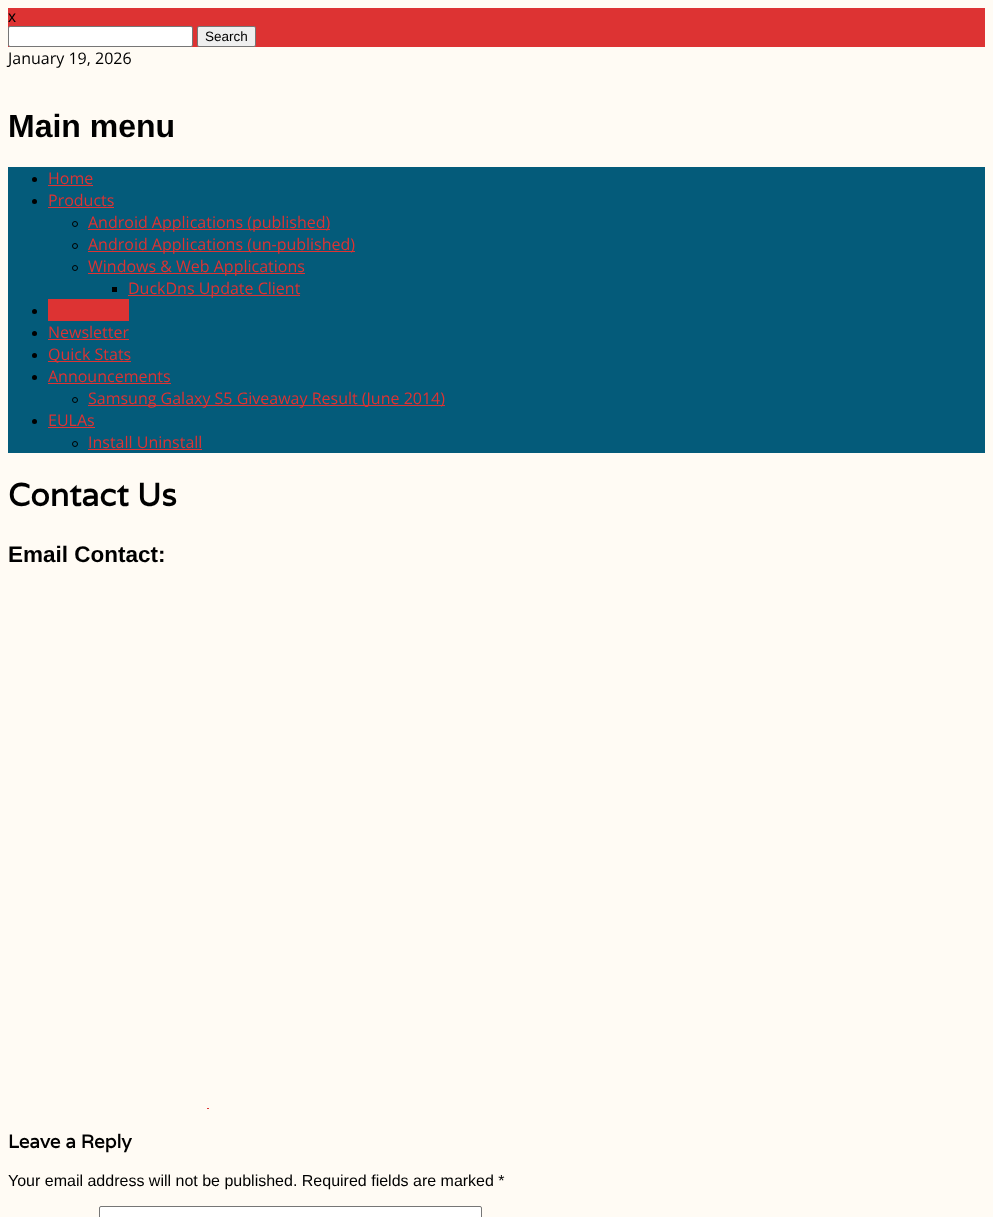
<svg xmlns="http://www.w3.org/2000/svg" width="993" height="1217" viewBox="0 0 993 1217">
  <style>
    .t1 { font: 16px Liberation Sans; fill: #000; }
    .t2 { font: 13.5px Liberation Sans; fill: #000; }
    .t3 { font: 16px Open Sans; fill: #000; }
    .t4 { font: bold 32px Liberation Sans; fill: #000; }
    .t5 { font: 16px Open Sans; fill: #d33; }
    .t6 { font: bold 32px Varela; fill: #000; }
    .t7 { font: bold 22.5px Liberation Sans; fill: #000; }
    .t8 { font: bold 18.75px Varela; fill: #000; }
  </style>
  <rect width="100%" height="100%" fill="#fffbf4"/>
  <rect x="8" y="8" width="977" height="39" fill="#d33"/>
  <text x="8" y="22" class="t1">x</text>
  <rect x="8.5" y="26.5" width="184" height="20" rx="1.5" fill="#fff" stroke="#767676"/>
  <rect x="197.5" y="26.5" width="58" height="20" rx="1.5" fill="#efefef" stroke="#767676"/>
  <text x="205" y="41" class="t2">Search</text>
  <text x="8" y="64" class="t3">January 19, 2026</text>
  <text x="8" y="137" class="t4">Main menu</text>
  <rect x="8" y="167" width="977" height="286" fill="#045b7a"/>
  <circle cx="34.5" cy="179.5" r="2.5" fill="#000"/>
  <text x="48" y="184" class="t5">Home</text>
  <rect x="48" y="185" width="45" height="1" fill="#d33"/>
  <circle cx="34.5" cy="201.5" r="2.5" fill="#000"/>
  <text x="48" y="206" class="t5">Products</text>
  <rect x="48" y="207" width="66" height="1" fill="#d33"/>
  <circle cx="75" cy="224" r="2.5" fill="none" stroke="#000"/>
  <rect x="88" y="229" width="242" height="1" fill="#d33"/>
  <text x="88" y="228" class="t5">Android Applications (published)</text>
  <circle cx="75" cy="246" r="2.5" fill="none" stroke="#000"/>
  <rect x="88" y="251" width="267" height="1" fill="#d33"/>
  <text x="88" y="250" class="t5">Android Applications (un-published)</text>
  <circle cx="75" cy="268" r="2.5" fill="none" stroke="#000"/>
  <rect x="88" y="273" width="217" height="1" fill="#d33"/>
  <text x="88" y="272" class="t5">Windows &amp; Web Applications</text>
  <rect x="112" y="287" width="5" height="5" fill="#000"/>
  <rect x="128" y="295" width="172" height="1" fill="#d33"/>
  <text x="128" y="294" class="t5">DuckDns Update Client</text>
  <circle cx="34.5" cy="311.5" r="2.5" fill="#000"/>
  <rect x="48" y="299" width="81" height="22" fill="#d33"/>
  <circle cx="34.5" cy="333.5" r="2.5" fill="#000"/>
  <text x="48" y="338" class="t5">Newsletter</text>
  <rect x="48" y="339" width="81" height="1" fill="#d33"/>
  <circle cx="34.5" cy="355.5" r="2.5" fill="#000"/>
  <rect x="48" y="361" width="83" height="1" fill="#d33"/>
  <text x="48" y="360" class="t5">Quick Stats</text>
  <circle cx="34.5" cy="377.5" r="2.5" fill="#000"/>
  <text x="48" y="382" class="t5">Announcements</text>
  <rect x="48" y="383" width="123" height="1" fill="#d33"/>
  <circle cx="75" cy="400" r="2.5" fill="none" stroke="#000"/>
  <rect x="88" y="405" width="357" height="1" fill="#d33"/>
  <text x="88" y="404" class="t5">Samsung Galaxy S5 Giveaway Result (June 2014)</text>
  <circle cx="34.5" cy="421.5" r="2.5" fill="#000"/>
  <text x="48" y="426" class="t5">EULAs</text>
  <rect x="48" y="427" width="47" height="1" fill="#d33"/>
  <circle cx="75" cy="444" r="2.5" fill="none" stroke="#000"/>
  <text x="88" y="448" class="t5">Install Uninstall</text>
  <rect x="88" y="449" width="114" height="1" fill="#d33"/>
  <text x="8" y="506" class="t6">Contact Us</text>
  <text x="8" y="562" class="t7">Email Contact:</text>
  <rect x="207" y="1108" width="2" height="1" fill="#d33"/>
  <text x="8" y="1148" class="t8">Leave a Reply</text>
  <text x="8" y="1186" class="t1">Your email address will not be published. Required fields are marked *</text>
  <rect x="99.5" y="1206.5" width="382" height="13" rx="1.5" fill="#fff" stroke="#767676"/>
</svg>
